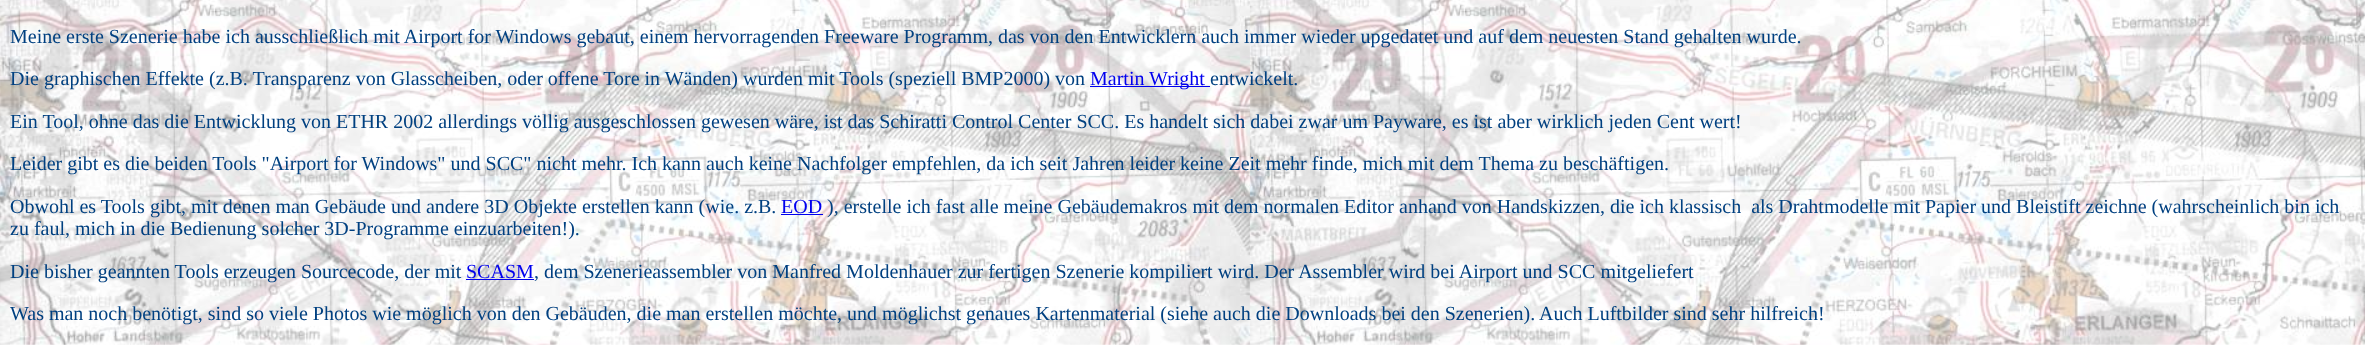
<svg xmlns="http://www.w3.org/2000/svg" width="2365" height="345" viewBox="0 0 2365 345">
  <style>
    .t1 { font: 20px Liberation Serif; fill: #004080; }
    .t2 { font: 20px Liberation Serif; fill: #00e; }
  </style>
  <rect width="100%" height="100%" fill="#fff"/>
  <image x="0" y="0" width="2365" height="345" href="images/1.png"/>
  <text x="10" y="43" class="t1">Meine erste Szenerie habe ich ausschließlich mit Airport for Windows gebaut, einem hervorragenden Freeware Programm, das von den Entwicklern auch immer wieder upgedatet und auf dem neuesten Stand gehalten wurde.</text>
  <text x="10" y="85" class="t1">Die graphischen Effekte (z.B. Transparenz von Glasscheiben, oder offene Tore in Wänden) wurden mit Tools (speziell BMP2000) von</text>
  <rect x="1090" y="86" width="120" height="1" fill="#00e"/>
  <text x="1090" y="85" class="t2">Martin Wright</text>
  <text x="1210" y="85" class="t1">entwickelt.</text>
  <text x="10" y="128" class="t1">Ein Tool, ohne das die Entwicklung von ETHR 2002 allerdings völlig ausgeschlossen gewesen wäre, ist das Schiratti Control Center SCC. Es handelt sich dabei zwar um Payware, es ist aber wirklich jeden Cent wert!</text>
  <text x="10" y="170" class="t1">Leider gibt es die beiden Tools "Airport for Windows" und SCC" nicht mehr. Ich kann auch keine Nachfolger empfehlen, da ich seit Jahren leider keine Zeit mehr finde, mich mit dem Thema zu beschäftigen.</text>
  <text x="10" y="213" class="t1">Obwohl es Tools gibt, mit denen man Gebäude und andere 3D Objekte erstellen kann (wie. z.B.</text>
  <text x="781" y="213" class="t2">EOD</text>
  <rect x="781" y="214" width="42" height="1" fill="#00e"/>
  <text x="827" y="213" class="t1" xml:space="preserve">), erstelle ich fast alle meine Gebäudemakros mit dem normalen Editor anhand von Handskizzen, die ich klassisch  als Drahtmodelle mit Papier und Bleistift zeichne (wahrscheinlich bin ich</text>
  <text x="10" y="235" class="t1">zu faul, mich in die Bedienung solcher 3D-Programme einzuarbeiten!).</text>
  <text x="10" y="278" class="t1">Die bisher geannten Tools erzeugen Sourcecode, der mit</text>
  <text x="466" y="278" class="t2">SCASM</text>
  <rect x="466" y="279" width="68" height="1" fill="#00e"/>
  <text x="534" y="278" class="t1">, dem Szenerieassembler von Manfred Moldenhauer zur fertigen Szenerie kompiliert wird. Der Assembler wird bei Airport und SCC mitgeliefert</text>
  <text x="10" y="320" class="t1">Was man noch benötigt, sind so viele Photos wie möglich von den Gebäuden, die man erstellen möchte, und möglichst genaues Kartenmaterial (siehe auch die Downloads bei den Szenerien). Auch Luftbilder sind sehr hilfreich!</text>
</svg>
